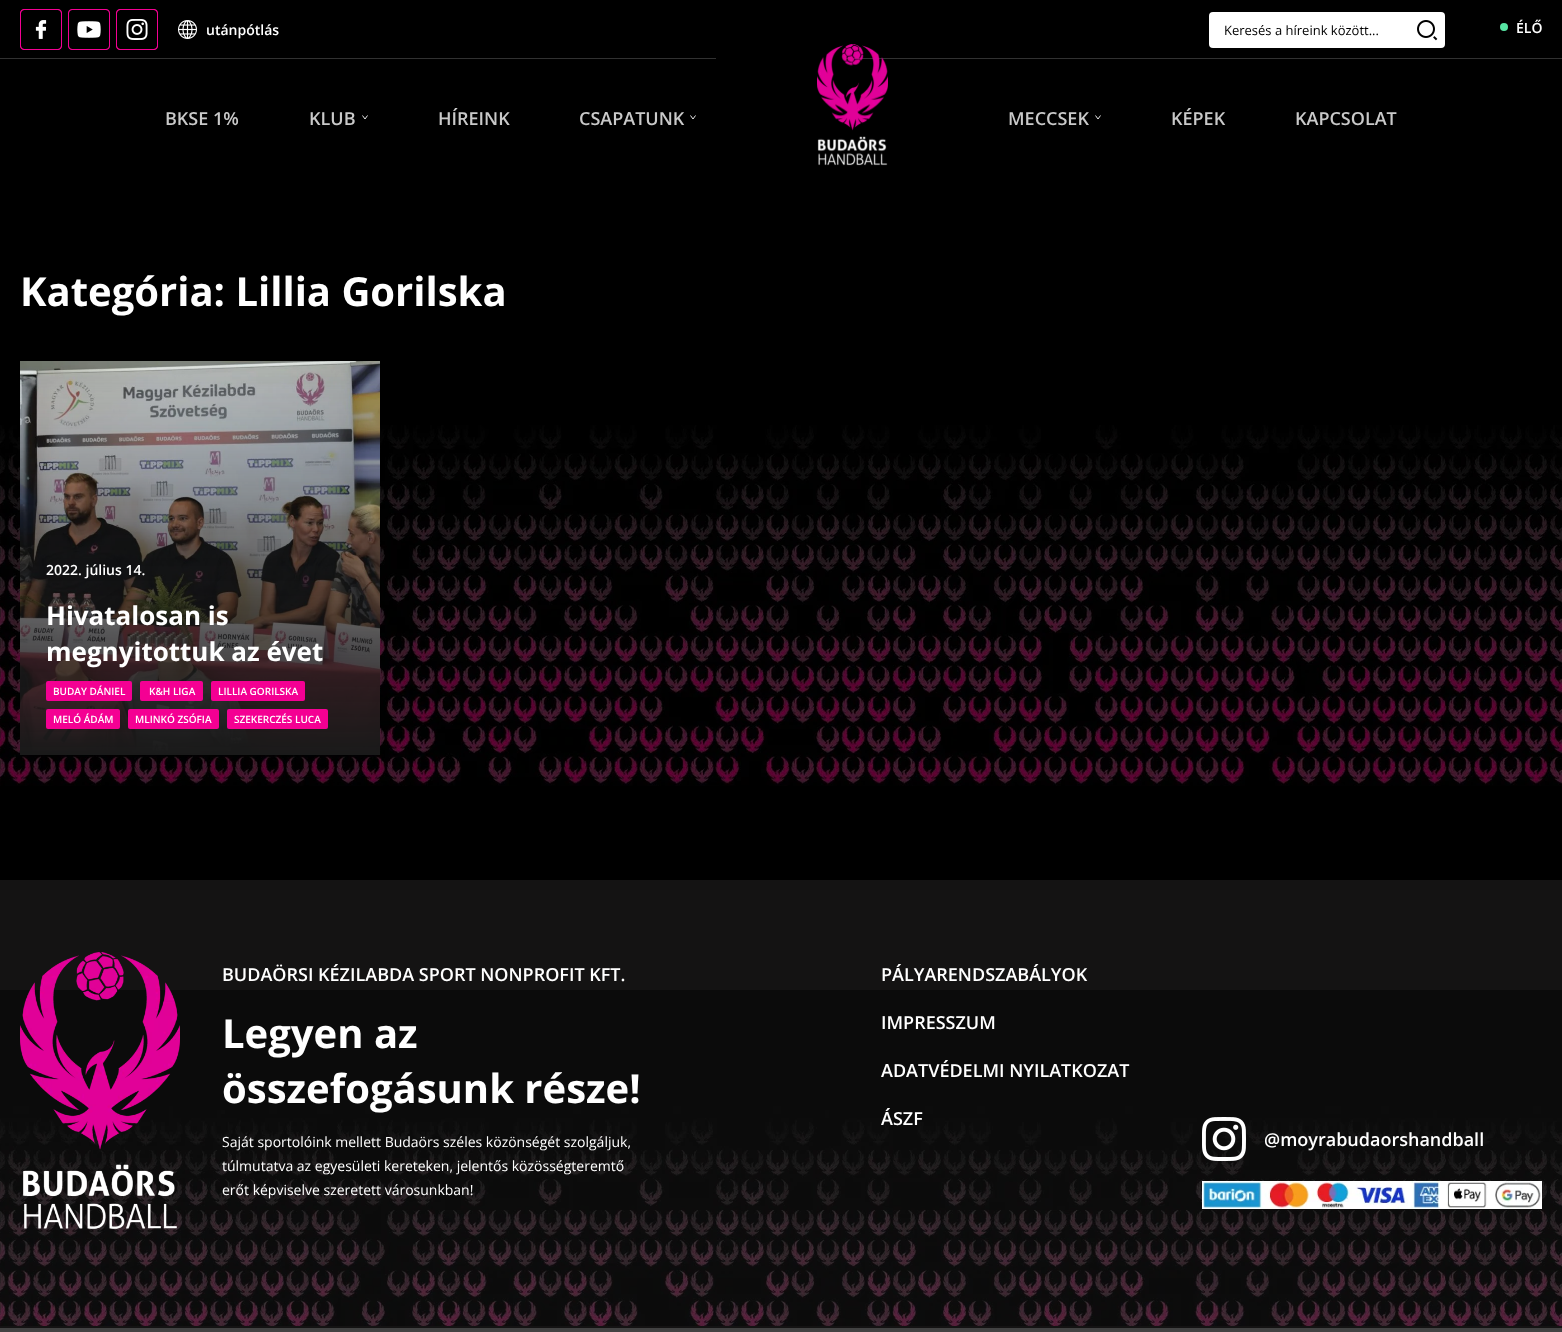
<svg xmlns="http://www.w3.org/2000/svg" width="1562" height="1332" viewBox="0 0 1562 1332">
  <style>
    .t1 { font: 600 14px Open Sans; fill: #fff; }
    .t2 { font: 13px Open Sans; fill: #000; }
    .t3 { font: 600 18px Open Sans; fill: #c9c9c9; }
    .t4 { font: bold 40px Open Sans; fill: #fff; }
    .t5 { font: bold 26px Open Sans; fill: #fff; }
    .t6 { font: 600 10px Open Sans; fill: #fff; }
    .t7 { font: 600 18px Open Sans; fill: #fff; }
    .t8 { font: 14px Open Sans; fill: #fff; }
  </style>
  <rect width="100%" height="100%" fill="#000"/>
  <image x="20" y="9" width="42" height="41" href="images/1.png"/>
  <rect x="20.5" y="9.5" width="41" height="40" rx="3.5" fill="none" stroke="#f40093"/>
  <image x="68" y="9" width="42" height="41" href="images/2.png"/>
  <rect x="68.5" y="9.5" width="41" height="40" rx="3.5" fill="none" stroke="#f40093"/>
  <image x="116" y="9" width="42" height="41" href="images/3.png"/>
  <rect x="116.5" y="9.5" width="41" height="40" rx="3.5" fill="none" stroke="#f40093"/>
  <image x="178" y="20" width="19" height="19" href="images/4.png"/>
  <text x="206" y="35" class="t1">utánpótlás</text>
  <rect x="1209" y="12" width="236" height="36" rx="4" fill="#fff"/>
  <text x="1224" y="35" class="t2">Keresés a híreink között...</text>
  <image x="1417" y="20" width="21" height="21" href="images/5.png"/>
  <circle cx="1504" cy="27" r="4" fill="#57e5a3"/>
  <text x="1516" y="33" class="t1">ÉLŐ</text>
  <rect x="0" y="58" width="716" height="1" fill="#313131"/>
  <rect x="846" y="58" width="716" height="1" fill="#313131"/>
  <text x="165" y="125" class="t3">BKSE 1%</text>
  <text x="309" y="125" class="t3">KLUB</text>
  <path d="M362.5 115.5L365 119L367.5 115.5" fill="none" stroke="#fff" stroke-width="0.9"/>
  <text x="438" y="125" class="t3">HÍREINK</text>
  <text x="579" y="125" class="t3">CSAPATUNK</text>
  <path d="M690.5 115.5L693 119L695.5 115.5" fill="none" stroke="#fff" stroke-width="0.9"/>
  <image x="817" y="44" width="71" height="122" href="images/6.png"/>
  <text x="1008" y="125" class="t3">MECCSEK</text>
  <path d="M1095.5 115.5L1098 119L1100.5 115.5" fill="none" stroke="#fff" stroke-width="0.9"/>
  <text x="1171" y="125" class="t3">KÉPEK</text>
  <text x="1295" y="125" class="t3">KAPCSOLAT</text>
  <text x="20" y="306" class="t4">Kategória: Lillia Gorilska</text>
  <image x="0" y="425" width="1562" height="361" href="images/8.png"/>
  <image x="20" y="361" width="360" height="394" href="images/7.png"/>
  <text x="46" y="575" class="t1">2022. július 14.</text>
  <text x="46" y="625" class="t5">Hivatalosan is</text>
  <text x="46" y="661" class="t5">megnyitottuk az évet</text>
  <rect x="46" y="681" width="86" height="20" rx="2" fill="#f40093"/>
  <text x="53" y="695" class="t6">BUDAY DÁNIEL</text>
  <rect x="140" y="681" width="63" height="20" rx="2" fill="#f40093"/>
  <text x="149" y="695" class="t6">K&amp;H LIGA</text>
  <rect x="211" y="681" width="94" height="20" rx="2" fill="#f40093"/>
  <text x="218" y="695" class="t6">LILLIA GORILSKA</text>
  <rect x="46" y="709" width="74" height="20" rx="2" fill="#f40093"/>
  <text x="53" y="723" class="t6">MELÓ ÁDÁM</text>
  <rect x="128" y="709" width="91" height="20" rx="2" fill="#f40093"/>
  <text x="135" y="723" class="t6">MLINKÓ ZSÓFIA</text>
  <rect x="227" y="709" width="101" height="20" rx="2" fill="#f40093"/>
  <text x="234" y="723" class="t6">SZEKERCZÉS LUCA</text>
  <rect x="0" y="880" width="1562" height="448" fill="#141313"/>
  <image x="0" y="990" width="1562" height="336" href="images/12.png"/>
  <image x="20" y="952" width="160" height="277" href="images/9.png"/>
  <text x="222" y="981" class="t7">BUDAÖRSI KÉZILABDA SPORT NONPROFIT KFT.</text>
  <text x="222" y="1048" class="t4">Legyen az</text>
  <text x="222" y="1103" class="t4">összefogásunk része!</text>
  <text x="222" y="1147" class="t8">Saját sportolóink mellett Budaörs széles közönségét szolgáljuk,</text>
  <text x="222" y="1171" class="t8">túlmutatva az egyesületi kereteken, jelentős közösségteremtő</text>
  <text x="222" y="1195" class="t8">erőt képviselve szeretett városunkban!</text>
  <text x="881" y="981" class="t7">PÁLYARENDSZABÁLYOK</text>
  <text x="881" y="1029" class="t7">IMPRESSZUM</text>
  <text x="881" y="1077" class="t7">ADATVÉDELMI NYILATKOZAT</text>
  <text x="881" y="1125" class="t7">ÁSZF</text>
  <image x="1202" y="1117" width="44" height="44" href="images/10.png"/>
  <text x="1264" y="1146" class="t7">@moyrabudaorshandball</text>
  <image x="1202" y="1181" width="340" height="28" href="images/11.png"/>
  <rect x="0" y="1328" width="1562" height="4" fill="#424242"/>
</svg>
